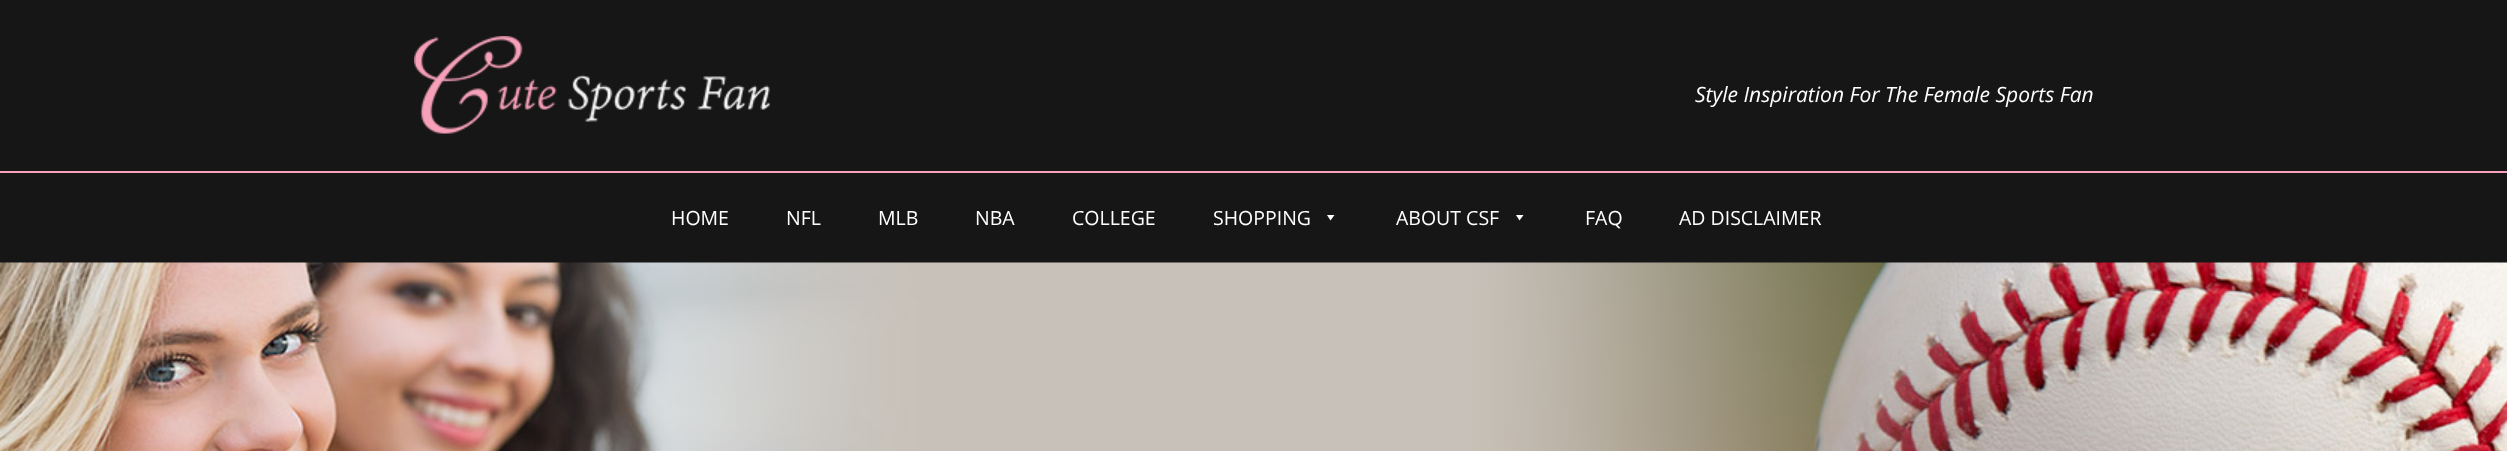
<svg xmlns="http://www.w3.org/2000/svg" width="2507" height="451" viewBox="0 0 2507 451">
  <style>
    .t1 { font: italic 21px Open Sans; fill: #fff; }
    .t2 { font: 19.5px Open Sans; fill: #fff; }
  </style>
  <rect width="100%" height="100%" fill="#161616"/>
  <image x="414" y="36" width="356" height="98" href="images/1.png"/>
  <text x="1695" y="102" class="t1">Style Inspiration For The Female Sports Fan</text>
  <rect x="0" y="171" width="2507" height="2" fill="#f6a0b9"/>
  <text x="671" y="225" class="t2">HOME</text>
  <text x="786" y="225" class="t2">NFL</text>
  <text x="878" y="225" class="t2">MLB</text>
  <text x="975" y="225" class="t2">NBA</text>
  <text x="1072" y="225" class="t2">COLLEGE</text>
  <text x="1213" y="225" class="t2">SHOPPING</text>
  <path d="M1334.5 215L1330.5 220.5L1327 215Z" fill="#fff"/>
  <text x="1396" y="225" class="t2">ABOUT CSF</text>
  <path d="M1523.5 215L1519.5 220.5L1516 215Z" fill="#fff"/>
  <text x="1585" y="225" class="t2">FAQ</text>
  <text x="1679" y="225" class="t2">AD DISCLAIMER</text>
  <image x="0" y="262" width="2507" height="189" href="images/2.png"/>
</svg>
